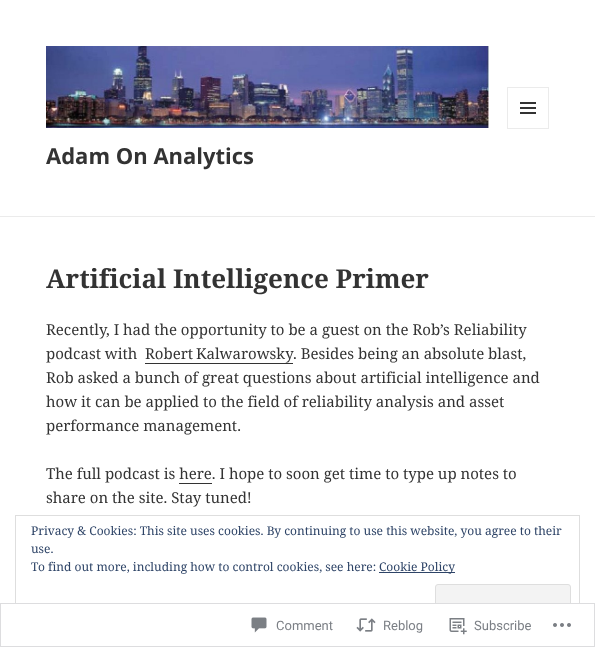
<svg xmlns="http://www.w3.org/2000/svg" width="595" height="647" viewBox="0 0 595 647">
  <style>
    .t1 { font: bold 22px Noto Sans; fill: #333; }
    .t2 { font: bold 26px Noto Serif; fill: #333; }
    .t3 { font: 15px Noto Serif; fill: #333; }
    .t4 { font: 12px Noto Serif; fill: #2e4467; }
    .t5 { font: 13px Roboto; fill: #7b7f85; }
  </style>
  <rect width="100%" height="100%" fill="#fff"/>
  <rect x="0" y="216" width="595" height="1" fill="#ebebeb"/>
  <image x="46" y="46" width="443" height="82" href="images/1.png"/>
  <rect x="507.5" y="87.5" width="41" height="41" fill="none" stroke="#ebebeb"/>
  <image x="520" y="102" width="16" height="12" href="images/2.png"/>
  <text x="46" y="164" class="t1">Adam On Analytics</text>
  <text x="46" y="288" class="t2">Artificial Intelligence Primer</text>
  <text x="46" y="335" class="t3">Recently, I had the opportunity to be a guest on the Rob’s Reliability</text>
  <text x="46" y="359" class="t3">podcast with</text>
  <text x="145" y="359" word-spacing="-1" class="t3">Robert Kalwarowsky</text>
  <rect x="145" y="363" width="148" height="1" fill="#333"/>
  <text x="293" y="359" class="t3">. Besides being an absolute blast,</text>
  <text x="46" y="383" class="t3">Rob asked a bunch of great questions about artificial intelligence and</text>
  <text x="46" y="407" class="t3">how it can be applied to the field of reliability analysis and asset</text>
  <text x="46" y="431" class="t3">performance management.</text>
  <text x="46" y="479" class="t3">The full podcast is here. I hope to soon get time to type up notes to</text>
  <rect x="179" y="483" width="33" height="1" fill="#333"/>
  <text x="46" y="503" class="t3">share on the site. Stay tuned!</text>
  <rect x="15.5" y="515.5" width="564" height="116" fill="none" stroke="#dedede"/>
  <text x="31" y="535" class="t4">Privacy &amp; Cookies: This site uses cookies. By continuing to use this website, you agree to their</text>
  <text x="31" y="553" class="t4">use.</text>
  <text x="31" y="571" class="t4">To find out more, including how to control cookies, see here:</text>
  <rect x="379" y="572" width="76" height="1" fill="#2e4467"/>
  <text x="379" y="571" class="t4">Cookie Policy</text>
  <rect x="435.5" y="584.5" width="135" height="38" rx="2.5" fill="#f3f3f3" stroke="#dedede"/>
  <rect x="15" y="603" width="565" height="29" fill="#fffffffa"/>
  <rect x="0.5" y="603.5" width="594" height="43" fill="none" stroke="#dcdcdefa"/>
  <image x="251" y="617" width="16" height="16" href="images/3.png"/>
  <text x="276" y="630" class="t5">Comment</text>
  <image x="356" y="618" width="20" height="14" href="images/4.png"/>
  <text x="383" y="630" class="t5">Reblog</text>
  <image x="449" y="618" width="18" height="17" href="images/5.png"/>
  <text x="474" y="630" class="t5">Subscribe</text>
  <image x="553" y="623" width="18" height="4" href="images/6.png"/>
</svg>
